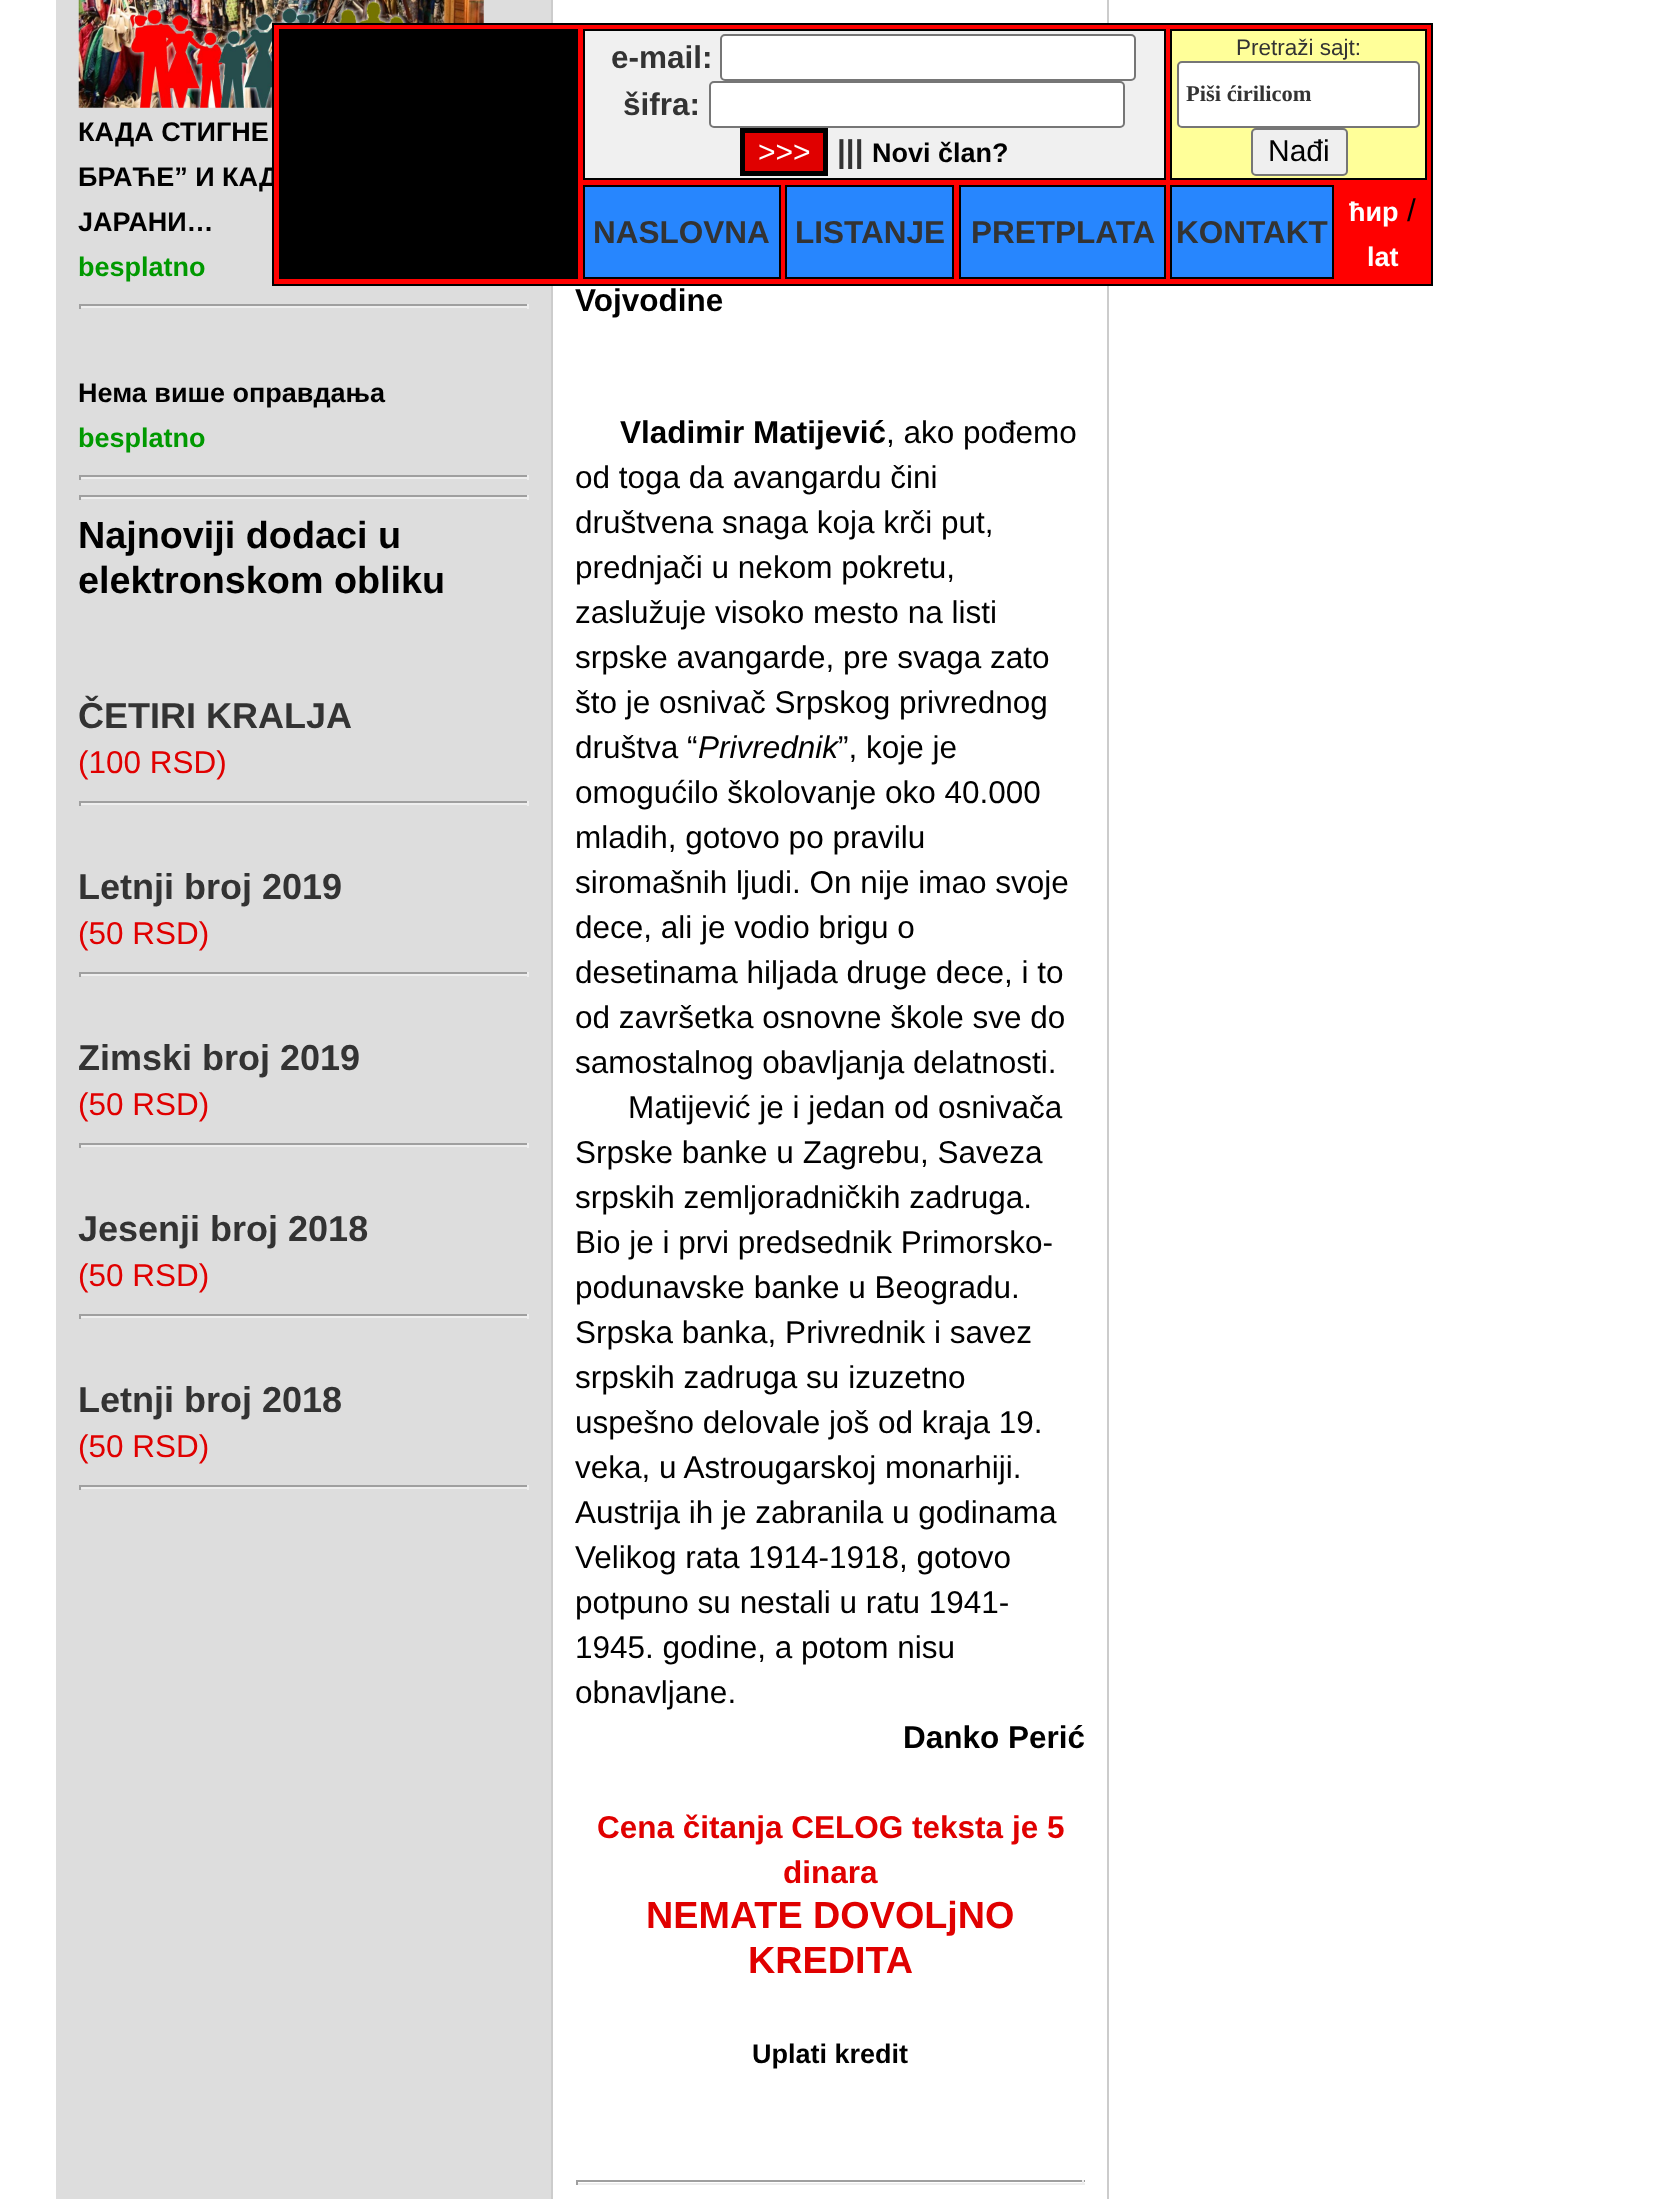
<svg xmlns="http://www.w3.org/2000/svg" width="1660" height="2199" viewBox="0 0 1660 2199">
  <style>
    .t1 { font: bold 27px Liberation Sans; fill: #000; }
    .t2 { font: bold 31.5px Liberation Sans; fill: #333; }
    .t3 { font: 30px Liberation Sans; fill: #fff; }
    .t4 { font: 22.5px Liberation Sans; fill: #333; }
    .t5 { font: bold 22.5px Liberation Serif; fill: #333; }
    .t6 { font: 30px Liberation Sans; fill: #000; }
    .t7 { font: bold 27px Liberation Sans; fill: #fff; }
    .t8 { font: 31.5px Liberation Sans; fill: #000; }
    .t9 { font: bold 27px Liberation Sans; fill: #090; }
    .t10 { font: bold 37.75px Liberation Sans; fill: #000; }
    .t11 { font: bold 36px Liberation Sans; fill: #333; }
    .t12 { font: 31.5px Liberation Sans; fill: #e00000; }
    .t13 { font: bold 31.5px Liberation Sans; fill: #000; }
    .t14 { font: italic 31.5px Liberation Sans; fill: #000; }
    .t15 { font: bold 31.5px Liberation Sans; fill: #e00000; }
    .t16 { font: bold 37.75px Liberation Sans; fill: #e00000; }
  </style>
  <rect width="100%" height="100%" fill="#fff"/>
  <rect x="56" y="0" width="495" height="2199" fill="#ddd"/>
  <image x="78" y="0" width="406" height="108" href="images/1.png"/>
  <text x="78" y="186" class="t1">БРАЋЕ” И КАД</text>
  <rect x="552" y="-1" width="556" height="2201" fill="none" stroke="#ccc" stroke-width="2"/>
  <rect x="273" y="24" width="1159" height="261" fill="#f00" stroke="#000" stroke-width="2"/>
  <rect x="279" y="29" width="299" height="250" fill="#000"/>
  <rect x="584" y="30" width="581" height="149" fill="#f0f0f0" stroke="#000" stroke-width="2"/>
  <text x="611" y="68" class="t2">e-mail:</text>
  <rect x="721" y="35" width="414" height="45" rx="4" fill="#fff" stroke="#767676" stroke-width="2"/>
  <text x="623" y="115" class="t2">šifra:</text>
  <rect x="710" y="82" width="414" height="45" rx="4" fill="#fff" stroke="#767676" stroke-width="2"/>
  <rect x="742.5" y="130.5" width="83" height="43" fill="#e00000" stroke="#000" stroke-width="5"/>
  <text x="758" y="162" class="t3">&gt;&gt;&gt;</text>
  <text x="837" y="162" class="t2">|||</text>
  <text x="872" y="162" class="t1">Novi član?</text>
  <rect x="1171" y="30" width="255" height="149" fill="#ff9" stroke="#000" stroke-width="2"/>
  <text x="1236" y="55" class="t4">Pretraži sajt:</text>
  <rect x="1178" y="62" width="241" height="65" rx="4" fill="#fff" stroke="#767676" stroke-width="2"/>
  <text x="1186" y="101" class="t5">Piši ćirilicom</text>
  <rect x="1252" y="129" width="95" height="46" rx="4" fill="#efefef" stroke="#767676" stroke-width="2"/>
  <text x="1268" y="161" class="t6">Nađi</text>
  <rect x="584" y="186" width="196" height="92" fill="#2786fe" stroke="#000" stroke-width="2"/>
  <text x="593" y="243" class="t2">NASLOVNA</text>
  <rect x="786" y="186" width="167" height="92" fill="#2786fe" stroke="#000" stroke-width="2"/>
  <text x="795" y="243" class="t2">LISTANJE</text>
  <rect x="960" y="186" width="205" height="92" fill="#2786fe" stroke="#000" stroke-width="2"/>
  <text x="971" y="243" class="t2">PRETPLATA</text>
  <rect x="1171" y="186" width="162" height="92" fill="#2786fe" stroke="#000" stroke-width="2"/>
  <text x="1176" y="243" class="t2">KONTAKT</text>
  <text x="1349" y="221" class="t7">ћир</text>
  <text x="1407" y="221" class="t8">/</text>
  <text x="1367" y="266" class="t7">lat</text>
  <text x="78" y="141" class="t1">КАДА СТИГНЕ</text>
  <text x="78" y="231" class="t1">ЈАРАНИ…</text>
  <text x="78" y="276" class="t9">besplatno</text>
  <rect x="79" y="304" width="450" height="2" fill="#9f9f9f"/>
  <rect x="527" y="304" width="2" height="5" fill="#eee"/>
  <rect x="79" y="306" width="450" height="2" fill="#eee"/>
  <rect x="79" y="304" width="2" height="5" fill="#9f9f9f"/>
  <text x="78" y="402" class="t1">Нема више оправдања</text>
  <text x="78" y="447" class="t9">besplatno</text>
  <rect x="79" y="475" width="450" height="2" fill="#9f9f9f"/>
  <rect x="527" y="475" width="2" height="5" fill="#eee"/>
  <rect x="79" y="477" width="450" height="2" fill="#eee"/>
  <rect x="79" y="475" width="2" height="5" fill="#9f9f9f"/>
  <rect x="79" y="495" width="450" height="2" fill="#9f9f9f"/>
  <rect x="527" y="495" width="2" height="5" fill="#eee"/>
  <rect x="79" y="497" width="450" height="2" fill="#eee"/>
  <rect x="79" y="495" width="2" height="5" fill="#9f9f9f"/>
  <text x="78" y="548" class="t10">Najnoviji dodaci u</text>
  <text x="78" y="593" class="t10">elektronskom obliku</text>
  <text x="78" y="728" class="t11">ČETIRI KRALJA</text>
  <text x="78" y="773" class="t12">(100 RSD)</text>
  <rect x="79" y="801" width="450" height="2" fill="#9f9f9f"/>
  <rect x="527" y="801" width="2" height="5" fill="#eee"/>
  <rect x="79" y="803" width="450" height="2" fill="#eee"/>
  <rect x="79" y="801" width="2" height="5" fill="#9f9f9f"/>
  <text x="78" y="899" class="t11">Letnji broj 2019</text>
  <text x="78" y="944" class="t12">(50 RSD)</text>
  <rect x="79" y="972" width="450" height="2" fill="#9f9f9f"/>
  <rect x="527" y="972" width="2" height="5" fill="#eee"/>
  <rect x="79" y="974" width="450" height="2" fill="#eee"/>
  <rect x="79" y="972" width="2" height="5" fill="#9f9f9f"/>
  <text x="78" y="1070" class="t11">Zimski broj 2019</text>
  <text x="78" y="1115" class="t12">(50 RSD)</text>
  <rect x="79" y="1143" width="450" height="2" fill="#9f9f9f"/>
  <rect x="527" y="1143" width="2" height="5" fill="#eee"/>
  <rect x="79" y="1145" width="450" height="2" fill="#eee"/>
  <rect x="79" y="1143" width="2" height="5" fill="#9f9f9f"/>
  <text x="78" y="1241" class="t11">Jesenji broj 2018</text>
  <text x="78" y="1286" class="t12">(50 RSD)</text>
  <rect x="79" y="1314" width="450" height="2" fill="#9f9f9f"/>
  <rect x="527" y="1314" width="2" height="5" fill="#eee"/>
  <rect x="79" y="1316" width="450" height="2" fill="#eee"/>
  <rect x="79" y="1314" width="2" height="5" fill="#9f9f9f"/>
  <text x="78" y="1412" class="t11">Letnji broj 2018</text>
  <text x="78" y="1457" class="t12">(50 RSD)</text>
  <rect x="79" y="1485" width="450" height="2" fill="#9f9f9f"/>
  <rect x="527" y="1485" width="2" height="5" fill="#eee"/>
  <rect x="79" y="1487" width="450" height="2" fill="#eee"/>
  <rect x="79" y="1485" width="2" height="5" fill="#9f9f9f"/>
  <text x="575" y="311" class="t13">Vojvodine</text>
  <text x="620" y="443" class="t13">Vladimir Matijević</text>
  <text x="886" y="443" class="t8">, ako pođemo</text>
  <text x="575" y="488" class="t8">od toga da avangardu čini</text>
  <text x="575" y="533" class="t8">društvena snaga koja krči put,</text>
  <text x="575" y="578" class="t8">prednjači u nekom pokretu,</text>
  <text x="575" y="623" class="t8">zaslužuje visoko mesto na listi</text>
  <text x="575" y="668" class="t8">srpske avangarde, pre svaga zato</text>
  <text x="575" y="713" class="t8">što je osnivač Srpskog privrednog</text>
  <text x="575" y="758" class="t8">društva “</text>
  <text x="698" y="758" class="t14">Privrednik</text>
  <text x="838" y="758" class="t8">”, koje je</text>
  <text x="575" y="803" class="t8">omogućilo školovanje oko 40.000</text>
  <text x="575" y="848" class="t8">mladih, gotovo po pravilu</text>
  <text x="575" y="893" class="t8">siromašnih ljudi. On nije imao svoje</text>
  <text x="575" y="938" class="t8">dece, ali je vodio brigu o</text>
  <text x="575" y="983" class="t8">desetinama hiljada druge dece, i to</text>
  <text x="575" y="1028" class="t8">od završetka osnovne škole sve do</text>
  <text x="575" y="1073" class="t8">samostalnog obavljanja delatnosti.</text>
  <text x="628" y="1118" class="t8">Matijević je i jedan od osnivača</text>
  <text x="575" y="1163" class="t8">Srpske banke u Zagrebu, Saveza</text>
  <text x="575" y="1208" class="t8">srpskih zemljoradničkih zadruga.</text>
  <text x="575" y="1253" class="t8">Bio je i prvi predsednik Primorsko-</text>
  <text x="575" y="1298" class="t8">podunavske banke u Beogradu.</text>
  <text x="575" y="1343" class="t8">Srpska banka, Privrednik i savez</text>
  <text x="575" y="1388" class="t8">srpskih zadruga su izuzetno</text>
  <text x="575" y="1433" class="t8">uspešno delovale još od kraja 19.</text>
  <text x="575" y="1478" class="t8">veka, u Astrougarskoj monarhiji.</text>
  <text x="575" y="1523" class="t8">Austrija ih je zabranila u godinama</text>
  <text x="575" y="1568" class="t8">Velikog rata 1914-1918, gotovo</text>
  <text x="575" y="1613" class="t8">potpuno su nestali u ratu 1941-</text>
  <text x="575" y="1658" class="t8">1945. godine, a potom nisu</text>
  <text x="575" y="1703" class="t8">obnavljane.</text>
  <text x="903" y="1748" class="t13">Danko Perić</text>
  <text x="597" y="1838" class="t15">Cena čitanja CELOG teksta je 5</text>
  <text x="783" y="1883" class="t15">dinara</text>
  <text x="646" y="1928" class="t16">NEMATE DOVOLjNO</text>
  <text x="748" y="1973" class="t16">KREDITA</text>
  <text x="752" y="2063" class="t1">Uplati kredit</text>
  <rect x="576" y="2180" width="509" height="2" fill="#9f9f9f"/>
  <rect x="1082" y="2180" width="2" height="5" fill="#eee"/>
  <rect x="576" y="2183" width="509" height="2" fill="#eee"/>
  <rect x="576" y="2180" width="2" height="5" fill="#9f9f9f"/>
</svg>
